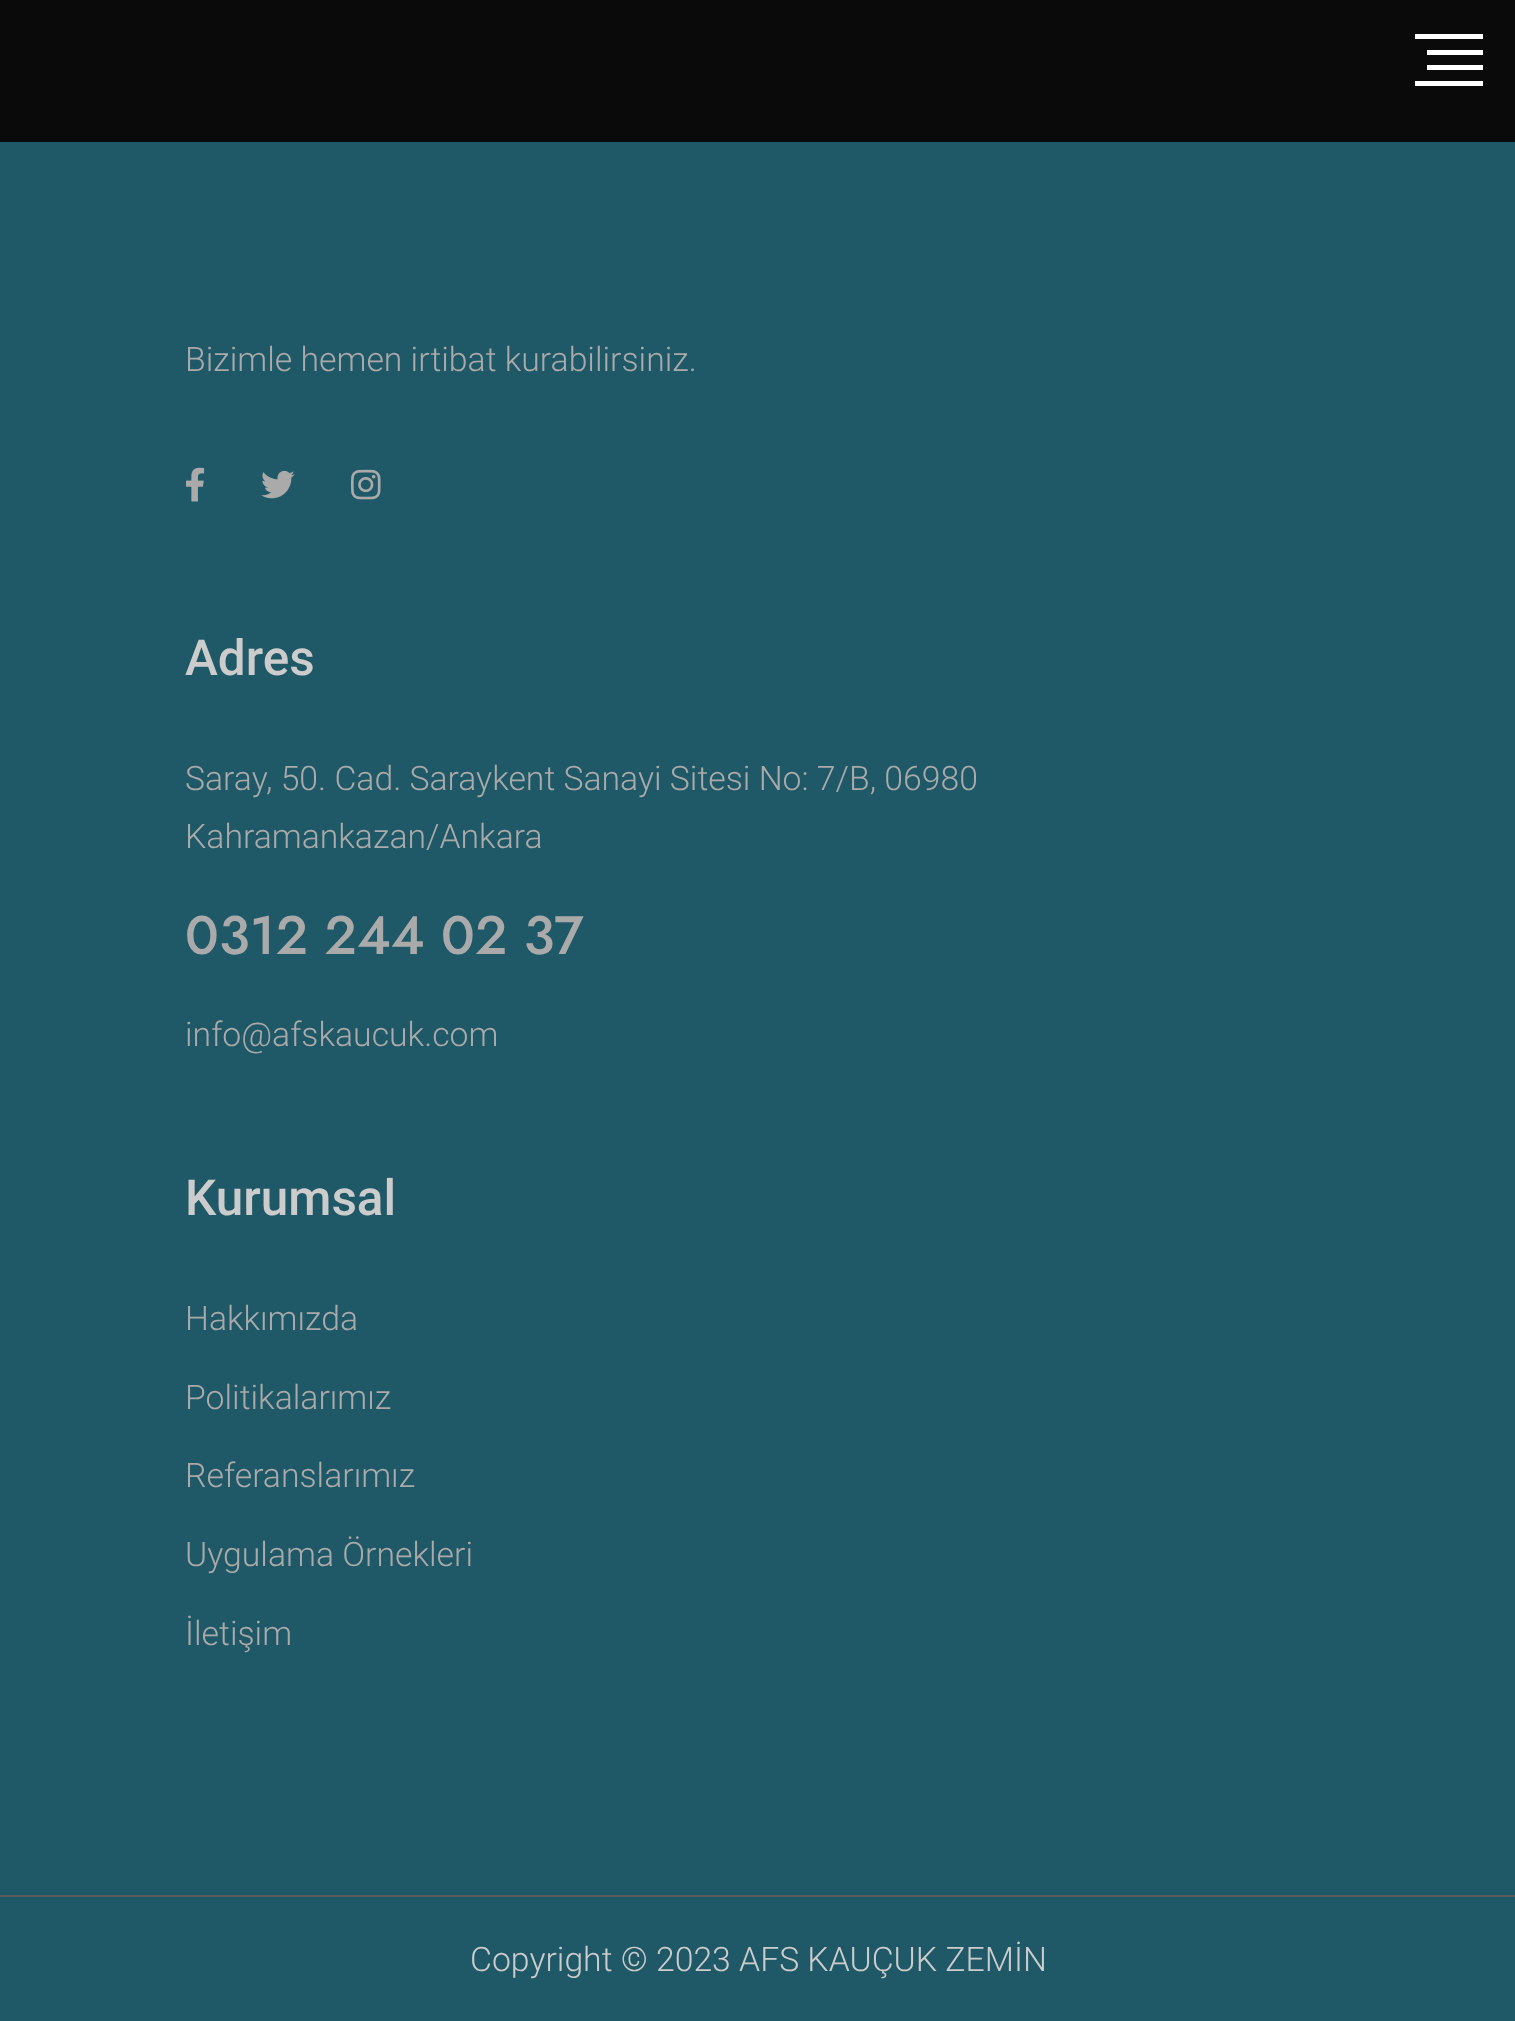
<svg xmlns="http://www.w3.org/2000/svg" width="1515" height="2021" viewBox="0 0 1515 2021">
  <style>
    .t1 { font: 300 33.75px Roboto; fill: #aaa; }
    .t2 { font: 500 49.5px Roboto; fill: #ccc; }
    .t3 { font: 500 54px Jost; fill: #aaa; }
    .t4 { font: 300 33.75px Roboto; fill: #ccc; }
  </style>
  <rect width="100%" height="100%" fill="#1f5967"/>
  <rect x="0" y="0" width="1515" height="142" fill="#0a0a0a"/>
  <rect x="1415" y="34" width="68" height="5" fill="#fff"/>
  <rect x="1427" y="50" width="56" height="5" fill="#fff"/>
  <rect x="1427" y="65" width="56" height="5" fill="#fff"/>
  <rect x="1415" y="81" width="68" height="5" fill="#fff"/>
  <rect x="0" y="1895" width="1515" height="2" fill="#5b5b5b"/>
  <text x="185" y="371" class="t1">Bizimle hemen irtibat kurabilirsiniz.</text>
  <image x="186" y="467" width="19" height="35" href="images/1.png"/>
  <image x="261" y="470" width="34" height="29" href="images/2.png"/>
  <image x="351" y="469" width="30" height="31" href="images/3.png"/>
  <text x="185" y="675" class="t2">Adres</text>
  <text x="185" y="790" class="t1">Saray, 50. Cad. Saraykent Sanayi Sitesi No: 7/B, 06980</text>
  <text x="185" y="848" class="t1">Kahramankazan/Ankara</text>
  <text x="185" y="954" class="t3">0312 244 02 37</text>
  <text x="185" y="1046" class="t1">info@afskaucuk.com</text>
  <text x="185" y="1215" class="t2">Kurumsal</text>
  <text x="185" y="1330" class="t1">Hakkımızda</text>
  <text x="185" y="1409" class="t1">Politikalarımız</text>
  <text x="185" y="1487" class="t1">Referanslarımız</text>
  <text x="185" y="1566" class="t1">Uygulama Örnekleri</text>
  <text x="185" y="1645" class="t1">İletişim</text>
  <text x="470" y="1971" class="t4">Copyright © 2023 AFS KAUÇUK ZEMİN</text>
</svg>
